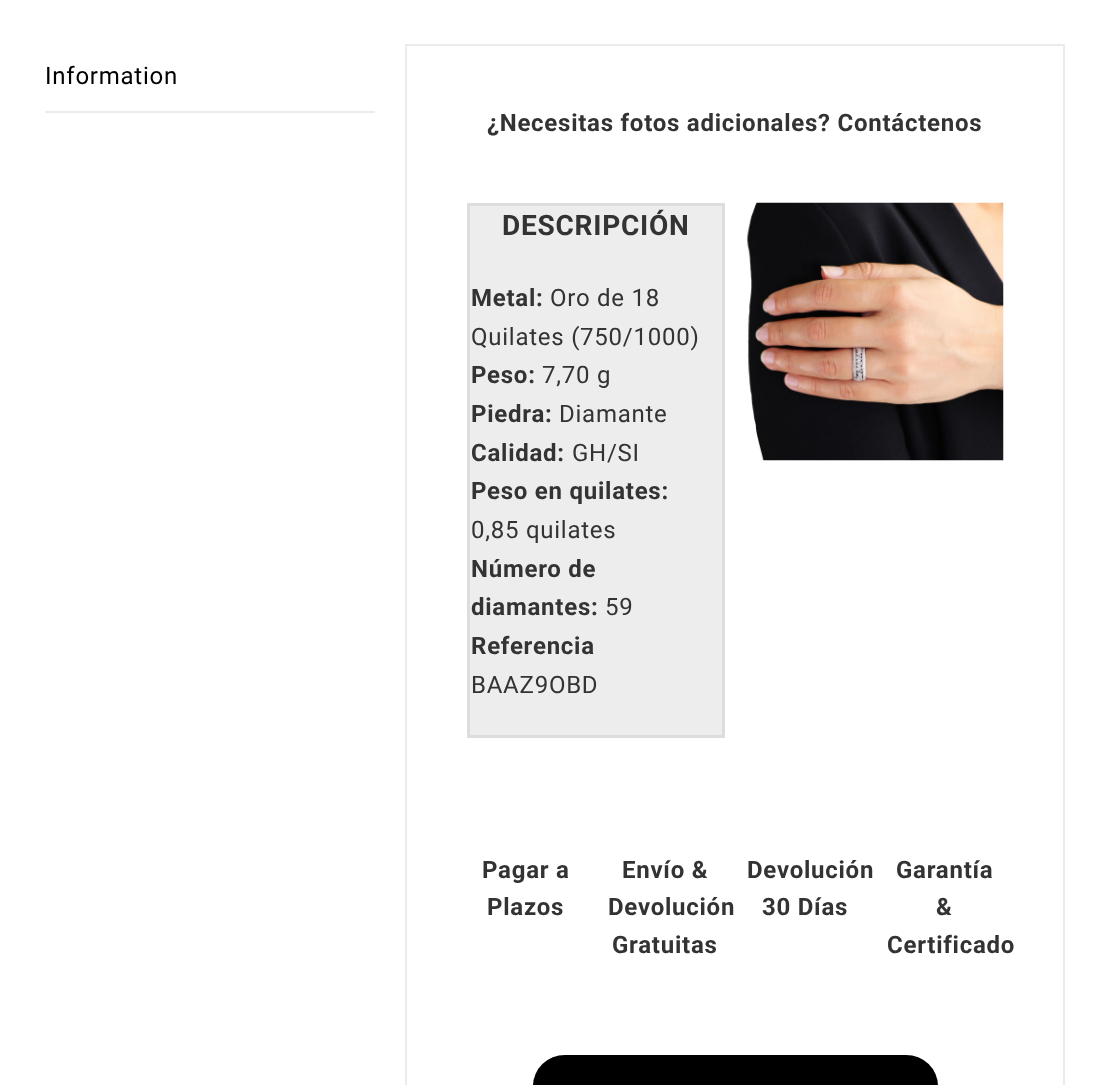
<svg xmlns="http://www.w3.org/2000/svg" width="1110" height="1085" viewBox="0 0 1110 1085">
  <style>
    .t1 { font: 24px Roboto; letter-spacing: 0.75px; fill: #000; }
    .t2 { font: bold 24px Roboto; letter-spacing: 0.75px; fill: #333; }
    .t3 { font: bold 28px Roboto; letter-spacing: 0.75px; fill: #333; }
    .t4 { font: 24px Roboto; letter-spacing: 0.75px; fill: #333; }
  </style>
  <rect width="100%" height="100%" fill="#fff"/>
  <rect x="45" y="111" width="330" height="2" fill="#ebebeb"/>
  <text x="45" y="84" class="t1">Information</text>
  <rect x="406" y="45" width="658" height="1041" fill="none" stroke="#ebebeb" stroke-width="2"/>
  <text x="487" y="131" class="t2">¿Necesitas fotos adicionales? Contáctenos</text>
  <rect x="468.5" y="204.5" width="255" height="532" fill="#ededed" stroke="#ddd" stroke-width="3"/>
  <text x="502" y="235" class="t3">DESCRIPCIÓN</text>
  <text x="471" y="306" class="t2">Metal:</text>
  <text x="550" y="306" class="t4">Oro de 18</text>
  <text x="471" y="345" class="t4">Quilates (750/1000)</text>
  <text x="471" y="383" class="t2">Peso:</text>
  <text x="542" y="383" class="t4">7,70 g</text>
  <text x="471" y="422" class="t2">Piedra:</text>
  <text x="559" y="422" class="t4">Diamante</text>
  <text x="471" y="461" class="t2">Calidad:</text>
  <text x="572" y="461" class="t4">GH/SI</text>
  <text x="471" y="499" class="t2">Peso en quilates:</text>
  <text x="471" y="538" class="t4">0,85 quilates</text>
  <text x="471" y="577" class="t2">Número de</text>
  <text x="471" y="615" class="t2">diamantes:</text>
  <text x="605" y="615" class="t4">59</text>
  <text x="471" y="654" class="t2">Referencia</text>
  <text x="471" y="693" class="t4">BAAZ9OBD</text>
  <image x="746" y="202" width="258" height="259" href="images/1.png"/>
  <text x="482" y="878" class="t2">Pagar a</text>
  <text x="487" y="915" class="t2">Plazos</text>
  <text x="622" y="878" class="t2">Envío &amp;</text>
  <text x="608" y="915" class="t2">Devolución</text>
  <text x="612" y="953" class="t2">Gratuitas</text>
  <text x="747" y="878" class="t2">Devolución</text>
  <text x="762" y="915" class="t2">30 Días</text>
  <text x="896" y="878" class="t2">Garantía</text>
  <text x="936" y="915" class="t2">&amp;</text>
  <text x="887" y="953" class="t2">Certificado</text>
  <rect x="533" y="1055" width="405" height="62" rx="32" fill="#000"/>
</svg>
